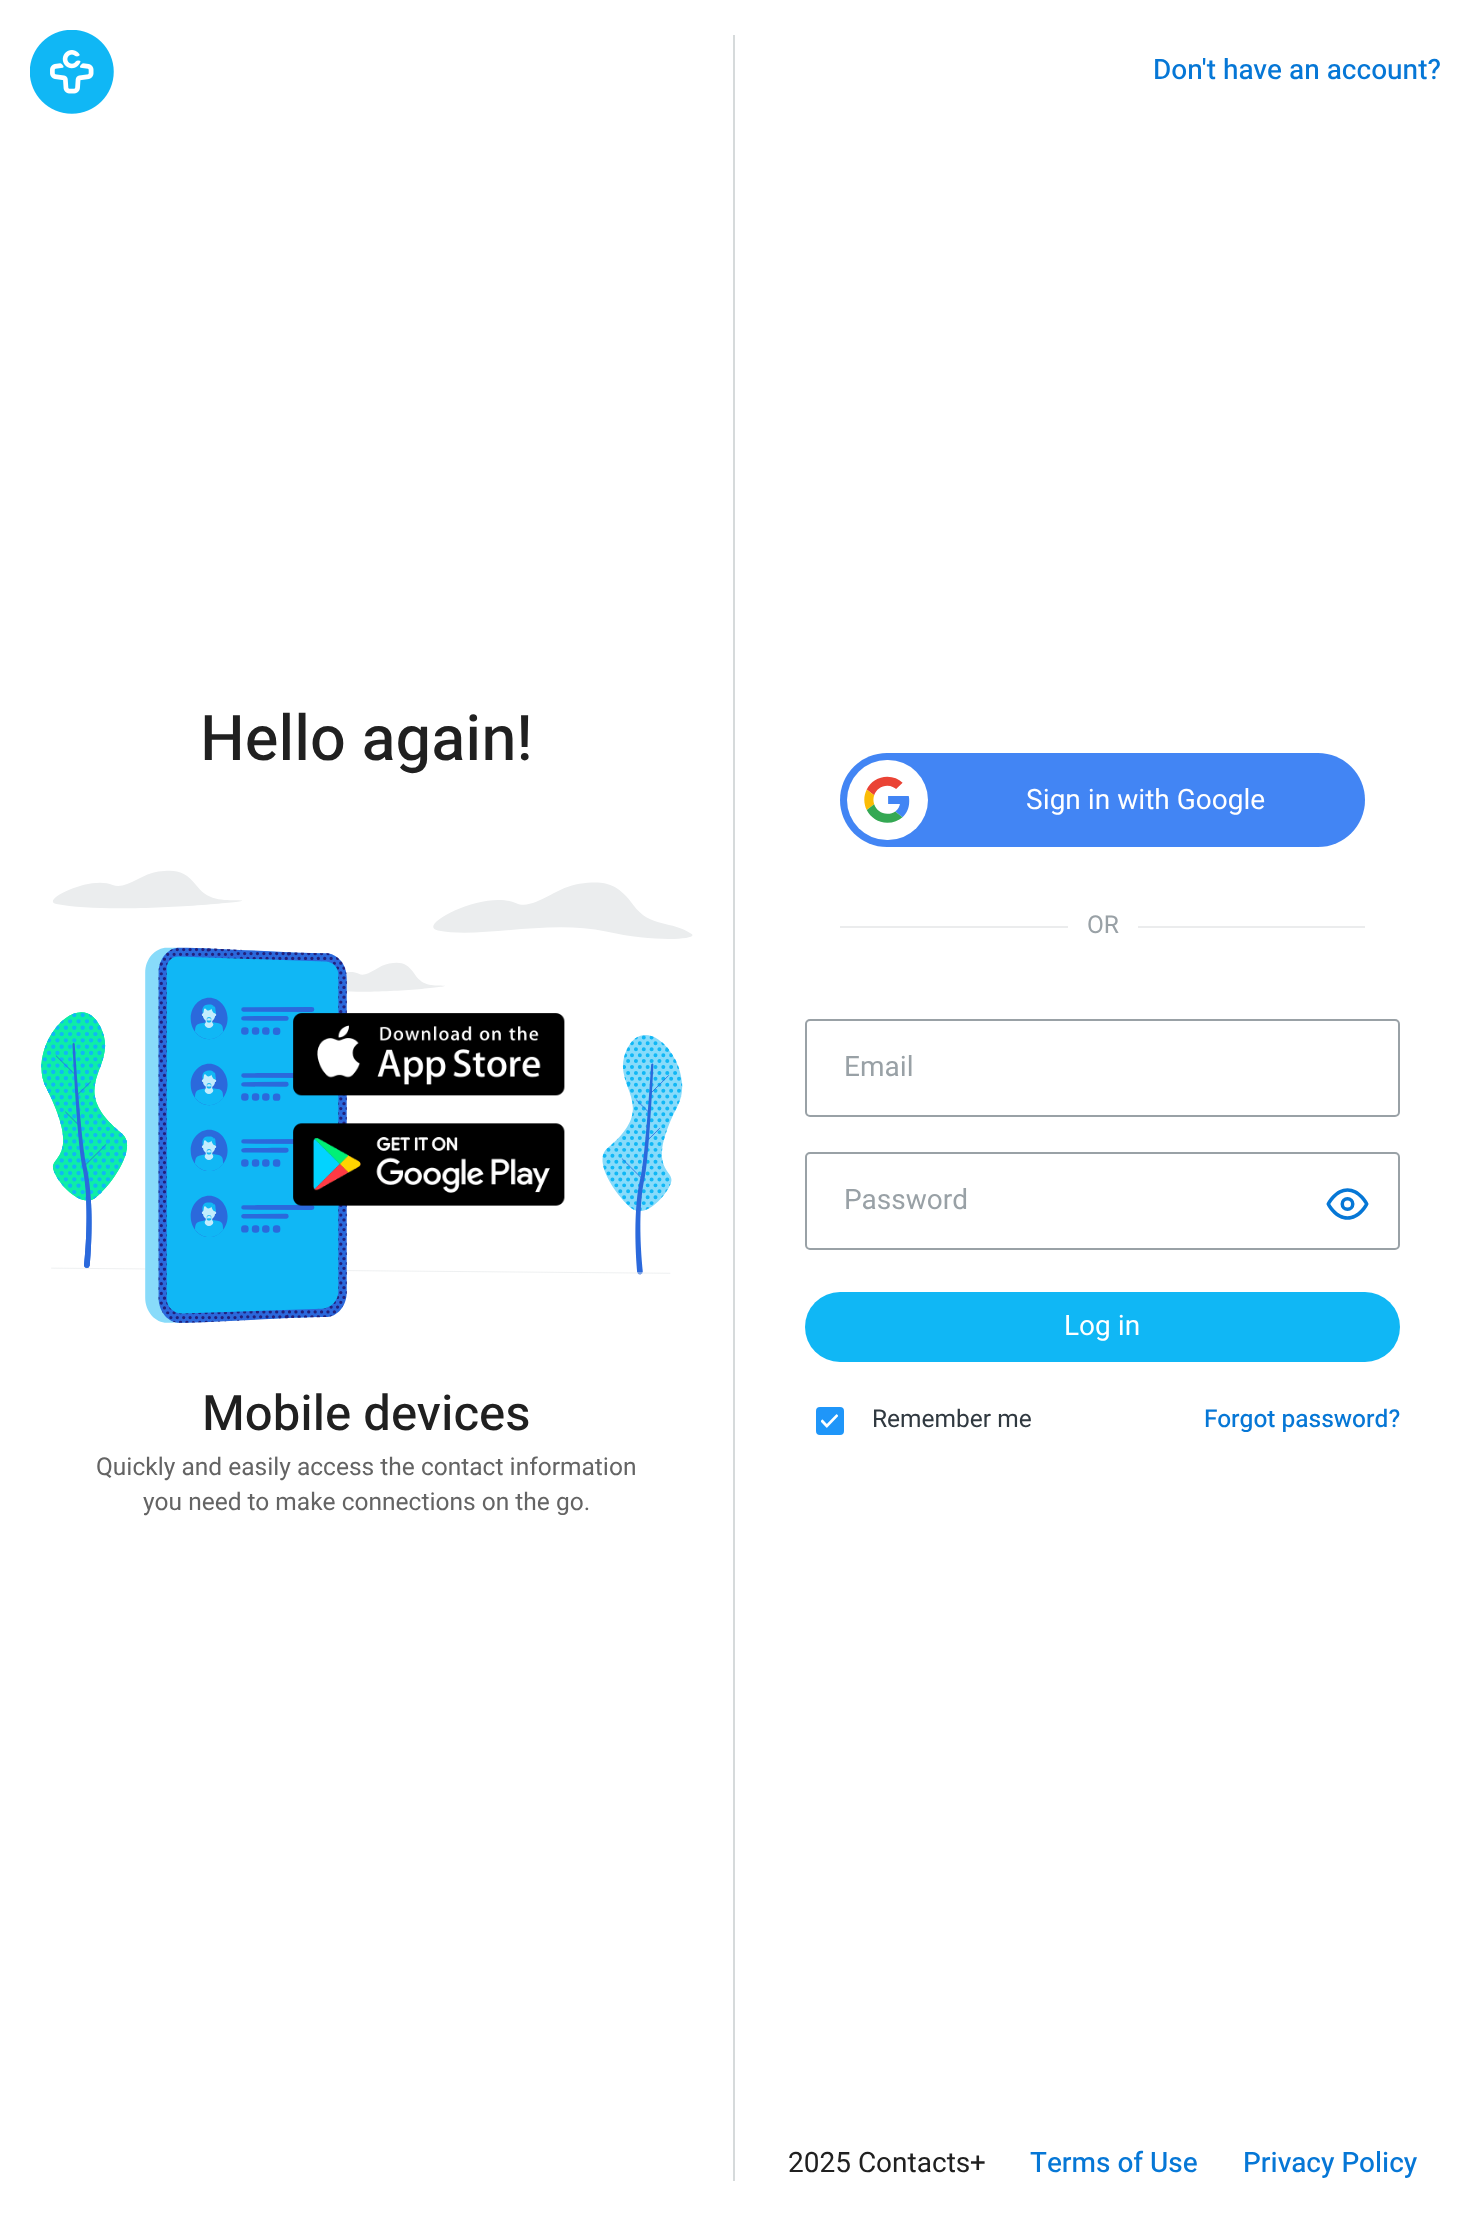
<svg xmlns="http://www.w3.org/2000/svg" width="1470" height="2214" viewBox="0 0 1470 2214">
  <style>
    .t1 { font: 500 28px Heebo; fill: #0677d6; }
    .t2 { font: 500 63px Heebo; fill: #202020; }
    .t3 { font: 500 49px Heebo; fill: #202020; }
    .t4 { font: 24.5px Heebo; fill: #646464; }
    .t5 { font: 28px Heebo; fill: #fff; }
    .t6 { font: 24.5px Heebo; fill: #99a1a6; }
    .t7 { font: 28px Heebo; fill: #99a1a6; }
    .t8 { font: 24.5px Heebo; fill: #303940; }
    .t9 { font: 500 24.5px Heebo; fill: #0677d6; }
    .t10 { font: 28px Heebo; fill: #202020; }
  </style>
  <rect width="100%" height="100%" fill="#fff"/>
  <image x="30" y="30" width="84" height="84" href="images/1.png"/>
  <text x="1153" y="79" class="t1">Don't have an account?</text>
  <rect x="733" y="35" width="2" height="2146" fill="#d6dadb"/>
  <text x="200" y="760" class="t2">Hello again!</text>
  <image x="41" y="870" width="652" height="453" href="images/2.png"/>
  <image x="293" y="1013" width="272" height="83" href="images/3.png"/>
  <image x="293" y="1123" width="272" height="83" href="images/4.png"/>
  <text x="202" y="1430" class="t3">Mobile devices</text>
  <text x="96" y="1475" class="t4">Quickly and easily access the contact information</text>
  <text x="143" y="1510" class="t4">you need to make connections on the go.</text>
  <rect x="840" y="753" width="525" height="94" rx="47" fill="#4285f4"/>
  <rect x="847" y="760" width="81" height="80" rx="40" fill="#fff"/>
  <image x="864" y="776" width="46" height="47" href="images/5.png"/>
  <text x="1026" y="809" class="t5">Sign in with Google</text>
  <rect x="840" y="926" width="228" height="2" fill="#ebeced"/>
  <text x="1087" y="933" class="t6">OR</text>
  <rect x="1138" y="926" width="227" height="2" fill="#ebeced"/>
  <rect x="806" y="1020" width="593" height="96" rx="4" fill="none" stroke="#99a1a6" stroke-width="2"/>
  <text x="844" y="1076" class="t7">Email</text>
  <rect x="806" y="1153" width="593" height="96" rx="4" fill="none" stroke="#99a1a6" stroke-width="2"/>
  <text x="844" y="1209" class="t7">Password</text>
  <image x="1326" y="1188" width="43" height="32" href="images/6.png"/>
  <rect x="805" y="1292" width="595" height="70" rx="35" fill="#10b7f5"/>
  <text x="1064" y="1335" class="t5">Log in</text>
  <rect x="818" y="1409" width="24" height="24" rx="2" fill="#1f96f9" stroke="#1f96f9" stroke-width="4"/>
  <image x="821" y="1414" width="17" height="14" href="images/7.png"/>
  <text x="872" y="1427" class="t8">Remember me</text>
  <text x="1204" y="1427" class="t9">Forgot password?</text>
  <text x="788" y="2172" class="t10">2025 Contacts+</text>
  <text x="1030" y="2172" class="t1">Terms of Use</text>
  <text x="1243" y="2172" class="t1">Privacy Policy</text>
</svg>
